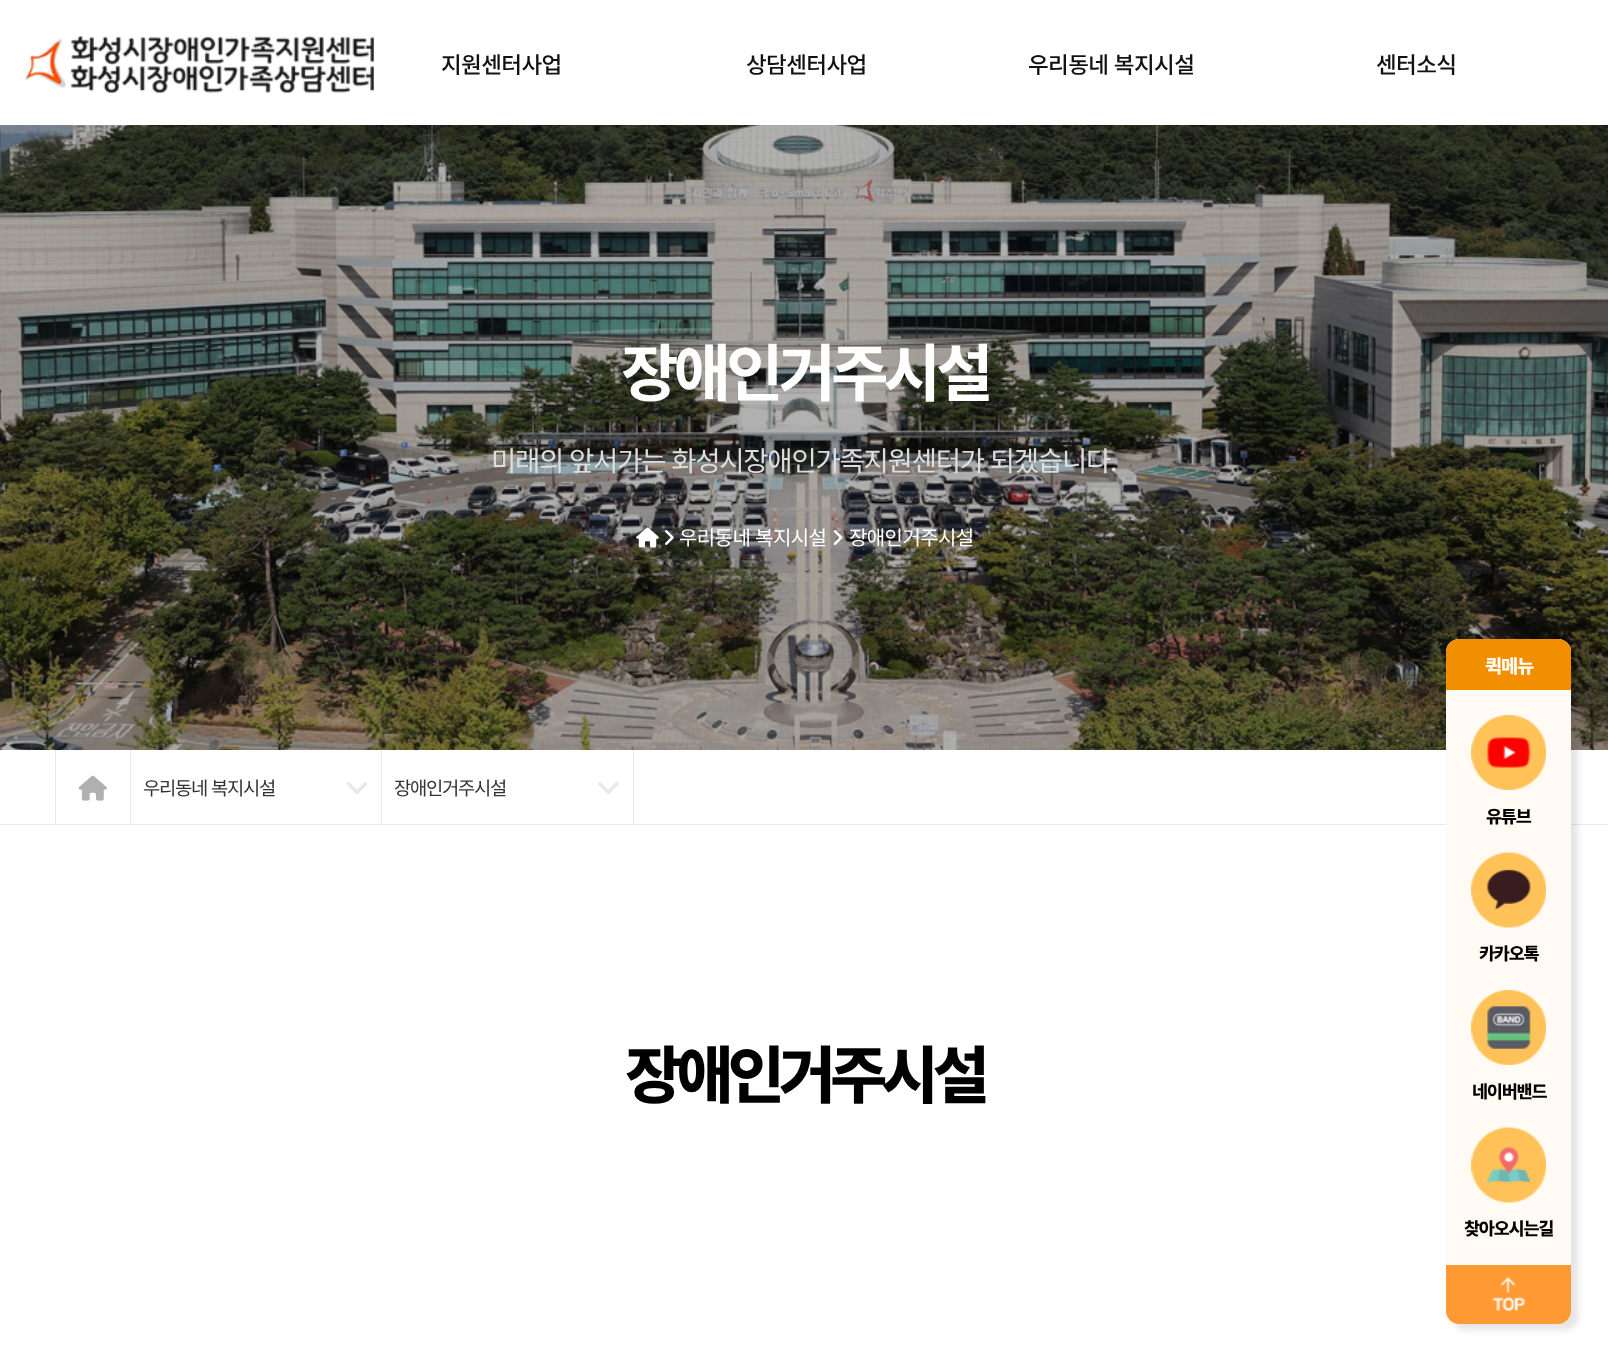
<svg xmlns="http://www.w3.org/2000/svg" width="1608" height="1361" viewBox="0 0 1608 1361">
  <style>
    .t1 { font: 500 22.5px Noto Sans KR; letter-spacing: -0.6px; fill: #121212; }
    .t2 { font: bold 62.5px Noto Sans KR; letter-spacing: -5px; fill: #fff; }
    .t3 { font: 27.5px Noto Sans KR; letter-spacing: -1.25px; fill: #ddd; }
    .t4 { font: 20px Noto Sans KR; letter-spacing: -0.6px; fill: #fff; }
    .t5 { font: 18.75px Noto Sans KR; letter-spacing: -1.25px; fill: #333; }
    .t6 { font: 800 62.5px Noto Sans KR; letter-spacing: -6.25px; fill: #000; }
    .t7 { font: 800 18.75px Noto Sans KR; letter-spacing: -1.25px; fill: #fff; }
    .t8 { font: 800 17.5px Noto Sans KR; letter-spacing: -1.25px; fill: #000; }
  </style>
  <rect width="100%" height="100%" fill="#fff"/>
  <image x="25" y="36" width="349" height="57" href="images/1.png"/>
  <text x="441" y="73" class="t1">지원센터사업</text>
  <text x="746" y="73" class="t1">상담센터사업</text>
  <text x="1028" y="73" word-spacing="1" class="t1">우리동네 복지시설</text>
  <text x="1376" y="73" class="t1">센터소식</text>
  <image x="0" y="125" width="1608" height="625" href="images/2.png"/>
  <text x="621" y="396" class="t2">장애인거주시설</text>
  <text x="491" y="471" word-spacing="1" class="t3">미래의 앞서가는 화성시장애인가족지원센터가 되겠습니다.</text>
  <image x="636" y="527" width="23" height="21" href="images/3.png"/>
  <image x="665" y="530" width="9" height="15" href="images/4.png"/>
  <text x="679" y="545" word-spacing="1" class="t4">우리동네 복지시설</text>
  <image x="833" y="530" width="10" height="15" href="images/5.png"/>
  <text x="849" y="545" class="t4">장애인거주시설</text>
  <rect x="0" y="824" width="1608" height="1" fill="#e8e8e8"/>
  <rect x="55" y="750" width="1" height="75" fill="#e8e8e8"/>
  <image x="78" y="775" width="29" height="26" href="images/6.png"/>
  <rect x="130" y="750" width="1" height="75" fill="#e8e8e8"/>
  <text x="143" y="795" word-spacing="1" class="t5">우리동네 복지시설</text>
  <image x="346" y="782" width="22" height="12" href="images/7.png"/>
  <rect x="633" y="750" width="1" height="75" fill="#e8e8e8"/>
  <rect x="381" y="750" width="1" height="75" fill="#e8e8e8"/>
  <text x="394" y="795" class="t5">장애인거주시설</text>
  <image x="598" y="782" width="21" height="12" href="images/8.png"/>
  <text x="625" y="1098" class="t6">장애인거주시설</text>
  <rect x="1453" y="645" width="125" height="685" rx="13" fill="#0000001a" filter="blur(3px)"/>
  <rect x="1446" y="639" width="125" height="685" rx="13" fill="#fffbf4"/>
  <path d="M1459 639H1558C1565 639 1571 645 1571 652V690H1446V652C1446 645 1452 639 1459 639Z" fill="#f28f01"/>
  <text x="1485" y="673" class="t7">퀵메뉴</text>
  <image x="1471" y="715" width="75" height="75" href="images/9.png"/>
  <text x="1486" y="823" class="t8">유튜브</text>
  <image x="1471" y="852" width="75" height="76" href="images/10.png"/>
  <text x="1479" y="960" class="t8">카카오톡</text>
  <image x="1471" y="990" width="75" height="75" href="images/11.png"/>
  <text x="1472" y="1098" class="t8">네이버밴드</text>
  <image x="1471" y="1127" width="75" height="76" href="images/12.png"/>
  <text x="1464" y="1235" class="t8">찾아오시는길</text>
  <path d="M1446 1265H1571V1311C1571 1318 1565 1324 1558 1324H1459C1452 1324 1446 1318 1446 1311Z" fill="#f93"/>
  <image x="1492" y="1277" width="34" height="35" href="images/13.png"/>
</svg>
